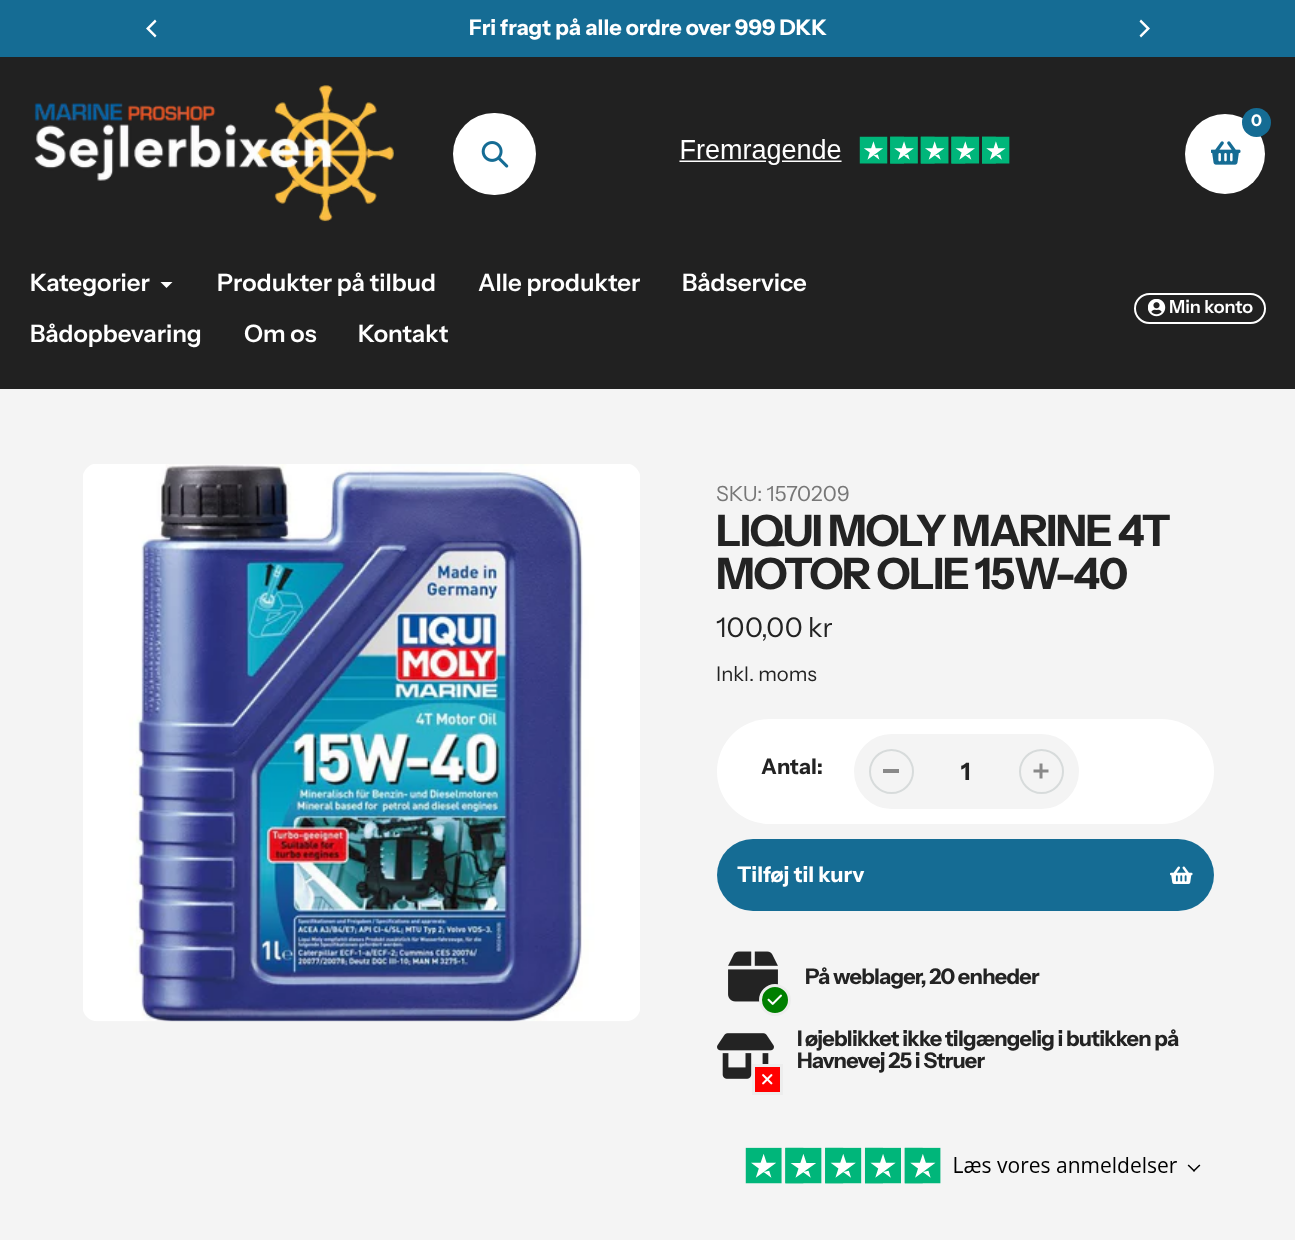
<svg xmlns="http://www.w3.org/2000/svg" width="1295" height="1240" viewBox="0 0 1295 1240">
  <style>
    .t1 { font: bold 21.6px Instrument Sans; fill: #fff; }
    .t2 { font: bold 16px Instrument Sans; fill: #fff; }
    .t3 { font: 600 24px Instrument Sans; fill: #fff; }
    .t4 { font: 600 18px Instrument Sans; fill: #fff; }
    .t5 { font: 21px Instrument Sans; fill: #777; }
    .t6 { font: bold 43.25px Instrument Sans; letter-spacing: -1.5px; fill: #232323; }
    .t7 { font: 27px Instrument Sans; fill: #232323; }
    .t8 { font: 20.25px Instrument Sans; fill: #232323; }
    .t9 { font: bold 21.6px Instrument Sans; fill: #232323; }
    .t10 { font: bold 24px Instrument Sans; fill: #232323; }
    .t11 { font: bold 21.6px Instrument Sans; letter-spacing: -0.75px; fill: #232323; }
  </style>
  <rect width="100%" height="100%" fill="#f4f4f4"/>
  <rect x="0" y="0" width="1295" height="57" fill="#156c94"/>
  <path d="M146 28.5L155 37.5L156.5 35.5L149.5 28.5L156.5 21.5L155 19.5Z" fill="#fff"/>
  <text x="469" y="35" class="t1">Fri fragt på alle ordre over 999 DKK</text>
  <path d="M1150 28.5L1141 19.5L1139.5 21.5L1146.5 28.5L1139.5 35.5L1141 37.5Z" fill="#fff"/>
  <rect x="0" y="57" width="1295" height="332" fill="#212121"/>
  <image x="34" y="85" width="360" height="137" href="images/1.png"/>
  <rect x="453" y="113" width="83" height="82" rx="41" fill="#fff"/>
  <image x="481" y="141" width="28" height="27" href="images/2.png"/>
  <circle cx="1225" cy="154" r="40" fill="#fff"/>
  <circle cx="1256.5" cy="122.5" r="14.5" fill="#156c94"/>
  <text x="1251" y="126" class="t2">0</text>
  <image x="1211" y="141" width="30" height="24" href="images/3.png"/>
  <image x="679" y="136" width="331" height="29" href="images/4.png"/>
  <text x="30" y="291" class="t3">Kategorier</text>
  <path d="M172.5 282L166.5 288L160.5 282" fill="#fff"/>
  <text x="217" y="291" class="t3">Produkter på tilbud</text>
  <text x="478" y="291" class="t3">Alle produkter</text>
  <text x="682" y="291" class="t3">Bådservice</text>
  <text x="30" y="342" class="t3">Bådopbevaring</text>
  <text x="244" y="342" class="t3">Om os</text>
  <text x="358" y="342" class="t3">Kontakt</text>
  <rect x="1135" y="294" width="130" height="29" rx="14.5" fill="none" stroke="#fff" stroke-width="2"/>
  <image x="1148" y="299" width="18" height="18" href="images/5.png"/>
  <text x="1169" y="313" class="t4">Min konto</text>
  <image x="83" y="464" width="557" height="558" href="images/6.png"/>
  <text x="716" y="501" class="t5">SKU: 1570209</text>
  <text x="716" y="546" class="t6">LIQUI MOLY MARINE 4T</text>
  <text x="716" y="589" class="t6">MOTOR OLIE 15W-40</text>
  <text x="716" y="637" class="t7">100,00 kr</text>
  <text x="716" y="681" class="t8">Inkl. moms</text>
  <rect x="717" y="719" width="497" height="105" rx="52.5" fill="#fff"/>
  <text x="761" y="774" class="t9">Antal:</text>
  <rect x="854" y="734" width="225" height="75" rx="37.5" fill="#f4f4f4"/>
  <rect x="883" y="769" width="16" height="4" fill="#898989"/>
  <circle cx="891.5" cy="771.5" r="21.5" fill="none" stroke="#d7dbdb" stroke-width="2"/>
  <text x="961" y="780" class="t10">1</text>
  <image x="1033" y="763" width="16" height="16" href="images/7.png"/>
  <circle cx="1041.5" cy="771.5" r="21.5" fill="none" stroke="#d7dbdb" stroke-width="2"/>
  <rect x="717" y="839" width="497" height="72" rx="36" fill="#156c94"/>
  <text x="737" y="882" class="t1">Tilføj til kurv</text>
  <image x="1170" y="866" width="23" height="18" href="images/8.png"/>
  <image x="728" y="951" width="50" height="51" href="images/9.png"/>
  <circle cx="775" cy="1000" r="14.5" fill="#008000" stroke="#ededed" stroke-width="3"/>
  <image x="767" y="994" width="15" height="11" href="images/10.png"/>
  <text x="805" y="984" class="t11">På weblager, 20 enheder</text>
  <image x="717" y="1033" width="57" height="46" href="images/11.png"/>
  <rect x="753.5" y="1065.5" width="28" height="28" fill="#f00" stroke="#ededed" stroke-width="3"/>
  <image x="762" y="1074" width="11" height="11" href="images/12.png"/>
  <text x="797" y="1046" class="t11">I øjeblikket ikke tilgængelig i butikken på</text>
  <text x="797" y="1068" class="t11">Havnevej 25 i Struer</text>
  <image x="745" y="1147" width="456" height="37" href="images/13.png"/>
</svg>
